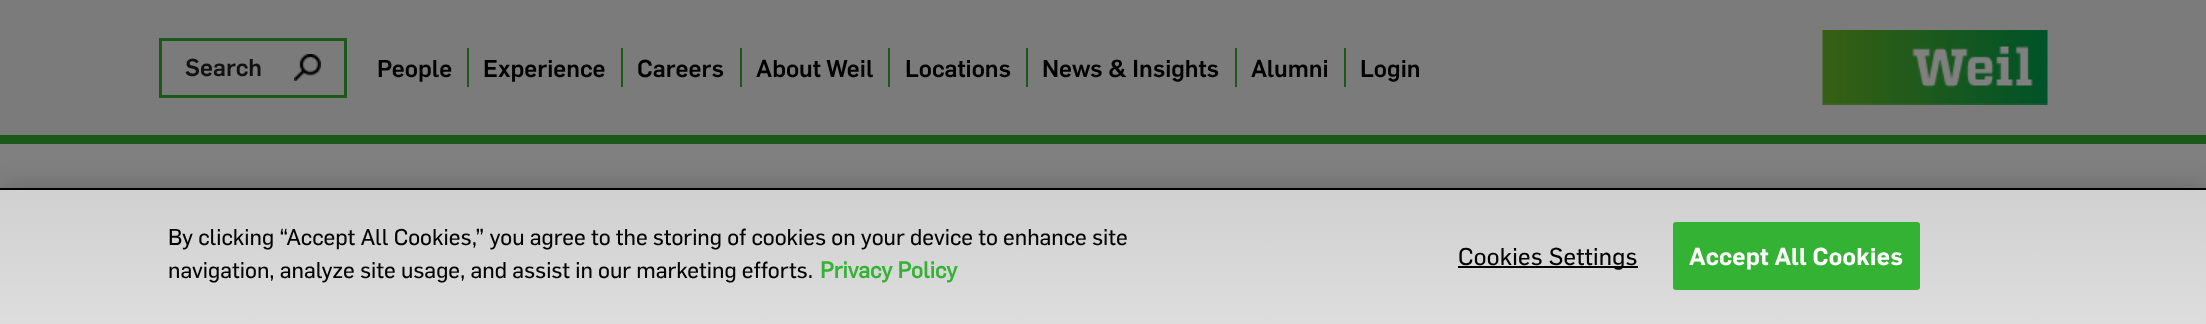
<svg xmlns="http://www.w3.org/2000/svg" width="2206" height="324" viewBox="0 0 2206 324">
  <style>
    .t1 { font: 500 24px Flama; fill: #111; }
    .t2 { font: 500 24px Flama; fill: #000; }
    .t3 { font: 500 22.5px 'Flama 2'; fill: #000; }
    .t4 { font: bold 22.5px Flama; fill: #34b234; }
    .t5 { font: 500 24px 'Flama 2'; letter-spacing: 0.25px; fill: #000; }
    .t6 { font: 600 24px Flama; letter-spacing: 0.25px; fill: #fff; }
  </style>
  <defs>
    <linearGradient id="g1" gradientUnits="userSpaceOnUse" x1="1103" y1="189" x2="1103" y2="324"><stop offset="0" stop-color="#d0d0d0"/><stop offset="1" stop-color="#ddd"/></linearGradient>
  </defs>
  <rect width="100%" height="100%" fill="#808080"/>
  <rect x="0" y="0" width="2206" height="135" fill="#7b7b7b"/>
  <rect x="0" y="135" width="2206" height="9" fill="#1a591a"/>
  <rect x="160.5" y="39.5" width="185" height="57" fill="none" stroke="#1a591a" stroke-width="3"/>
  <text x="185" y="76" class="t1">Search</text>
  <image x="294" y="54" width="27" height="27" href="images/1.png"/>
  <rect x="467" y="48" width="2" height="39" fill="#1a591a"/>
  <text x="377" y="77" class="t2">People</text>
  <rect x="621" y="48" width="2" height="39" fill="#1a591a"/>
  <text x="483" y="77" class="t2">Experience</text>
  <rect x="740" y="48" width="2" height="39" fill="#1a591a"/>
  <text x="637" y="77" class="t2">Careers</text>
  <rect x="888" y="48" width="2" height="39" fill="#1a591a"/>
  <text x="756" y="77" class="t2">About Weil</text>
  <rect x="1026" y="48" width="2" height="39" fill="#1a591a"/>
  <text x="905" y="77" class="t2">Locations</text>
  <rect x="1235" y="48" width="2" height="39" fill="#1a591a"/>
  <text x="1042" y="77" class="t2">News &amp; Insights</text>
  <rect x="1344" y="48" width="2" height="39" fill="#1a591a"/>
  <text x="1251" y="77" class="t2">Alumni</text>
  <text x="1360" y="77" class="t2">Login</text>
  <image x="1822" y="30" width="226" height="75" href="images/2.png"/>
  <rect x="0" y="188" width="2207" height="136" fill="#00000033" filter="blur(13.5px)"/>
  <rect x="0" y="190" width="2206" height="134" fill="url(#g1)"/>
  <rect x="0" y="188" width="2206" height="2" fill="#000"/>
  <text x="168" y="245" class="t3">By clicking “Accept All Cookies,” you agree to the storing of cookies on your device to enhance site</text>
  <text x="168" y="278" class="t3">navigation, analyze site usage, and assist in our marketing efforts.</text>
  <text x="820" y="278" class="t4">Privacy Policy</text>
  <rect x="1458" y="266" width="180" height="2" fill="#000"/>
  <text x="1458" y="265" class="t5">Cookies Settings</text>
  <rect x="1674" y="223" width="245" height="66" rx="2" fill="#34b234" stroke="#34b234" stroke-width="2"/>
  <text x="1689" y="265" class="t6">Accept All Cookies</text>
</svg>
